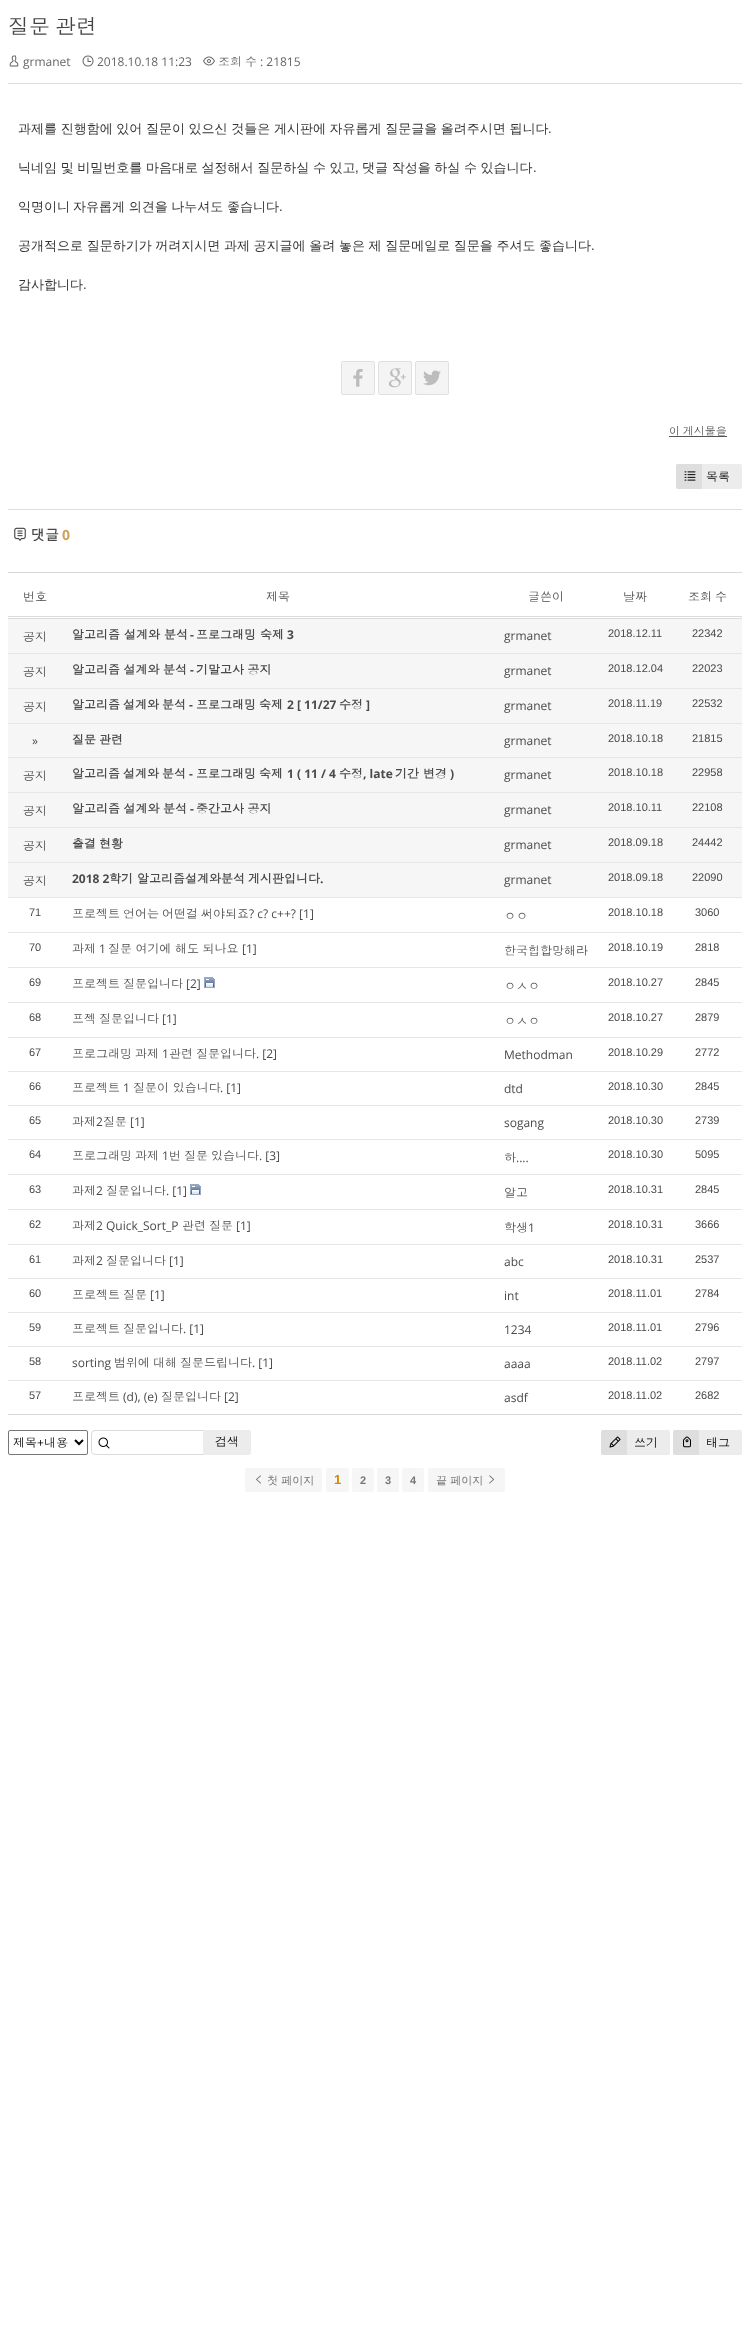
<svg xmlns="http://www.w3.org/2000/svg" width="750" height="2352" viewBox="0 0 750 2352">
  <style>
    .t1 { font: 21px Dotum; fill: #444; }
    .t2 { font: 12px Open Sans; fill: #666; }
    .t3 { font: 12px Dotum; fill: #666; }
    .t4 { font: 500 13px WenQuanYi Zen Hei; fill: #333; }
    .t5 { font: 13px Liberation Sans; fill: #333; }
    .t6 { font: 11px Dotum; fill: #555; }
    .t7 { font: 12px Dotum; fill: #000; }
    .t8 { font: bold 14px Dotum; fill: #4a4a4a; }
    .t9 { font: bold 14px Open Sans; fill: #cda25a; }
    .t10 { font: 12px Dotum; fill: #4a4a4a; }
    .t11 { font: bold 12px Dotum; fill: #4a4a4a; }
    .t12 { font: bold 12px Open Sans; fill: #4a4a4a; }
    .t13 { font: 12px Open Sans; fill: #4a4a4a; }
    .t14 { font: 11px Liberation Sans; fill: #4a4a4a; }
    .t15 { font: 12px Open Sans; fill: #000; }
    .t16 { font: 500 11px WenQuanYi Zen Hei; fill: #767676; }
    .t17 { font: bold 13px Liberation Sans; fill: #d88700; }
    .t18 { font: bold 11px Liberation Sans; fill: #767676; }
  </style>
  <rect width="100%" height="100%" fill="#fff"/>
  <text x="8" y="34" word-spacing="-2" class="t1">질문 관련</text>
  <rect x="8" y="83" width="734" height="1" fill="#ddd"/>
  <image x="9" y="55" width="10" height="12" href="images/1.png"/>
  <text x="23" y="66" class="t2">grmanet</text>
  <image x="82" y="55" width="12" height="12" href="images/2.png"/>
  <text x="97" y="66" class="t2">2018.10.18 11:23</text>
  <image x="203" y="56" width="12" height="10" href="images/3.png"/>
  <text x="218" y="66" class="t3">조회</text>
  <text x="245" y="66" class="t3">수</text>
  <text x="260" y="66" class="t2">: 21815</text>
  <text x="18" y="133" word-spacing="-0.25" class="t4">과제를 진행함에 있어 질문이 있으신 것들은 게시판에 자유롭게 질문글을 올려주시면 됩니다</text>
  <text x="548" y="133" class="t5">.</text>
  <text x="18" y="172" word-spacing="-0.25" class="t4">닉네임 및 비밀번호를 마음대로 설정해서 질문하실 수 있고</text>
  <text x="355" y="172" class="t5">,</text>
  <text x="362" y="172" word-spacing="-0.25" class="t4">댓글 작성을 하실 수 있습니다</text>
  <text x="533" y="172" class="t5">.</text>
  <text x="18" y="211" class="t4">익명이니</text>
  <text x="73" y="211" word-spacing="-0.25" class="t4">자유롭게 의견을 나누셔도 좋습니다</text>
  <text x="279" y="211" class="t5">.</text>
  <text x="18" y="250" word-spacing="-0.25" class="t4">공개적으로 질문하기가 꺼려지시면 과제 공지글에 올려 놓은 제 질문메일로 질문을 주셔도 좋습니다</text>
  <text x="591" y="250" class="t5">.</text>
  <text x="18" y="289" class="t4">감사합니다</text>
  <text x="83" y="289" class="t5">.</text>
  <rect x="341.5" y="361.5" width="33" height="33" rx="1.5" fill="#f4f4f4" stroke="#e0e0e0"/>
  <image x="353" y="369" width="10" height="18" href="images/4.png"/>
  <rect x="378.5" y="361.5" width="33" height="33" rx="1.5" fill="#f4f4f4" stroke="#e0e0e0"/>
  <image x="388" y="368" width="18" height="20" href="images/5.png"/>
  <rect x="415.5" y="361.5" width="33" height="33" rx="1.5" fill="#f4f4f4" stroke="#e0e0e0"/>
  <image x="423" y="370" width="18" height="16" href="images/6.png"/>
  <text x="669" y="435" word-spacing="-1" class="t6">이 게시물을</text>
  <rect x="669" y="436" width="58" height="1" fill="#555"/>
  <rect x="676" y="464" width="66" height="25" rx="2" fill="#ececec"/>
  <path d="M678 464H702V489H678C677 489 676 488 676 487V466C676 465 677 464 678 464Z" fill="#dedede"/>
  <image x="684" y="471" width="12" height="10" href="images/7.png"/>
  <text x="706" y="481" class="t7">목록</text>
  <rect x="8" y="509" width="734" height="1" fill="#ddd"/>
  <image x="14" y="527" width="12" height="14" href="images/8.png"/>
  <text x="31" y="540" class="t8">댓글</text>
  <text x="62" y="540" class="t9">0</text>
  <rect x="8" y="572" width="734" height="1" fill="#d8d8d8"/>
  <rect x="8" y="1414" width="734" height="1" fill="#d8d8d8"/>
  <rect x="8" y="616" width="734" height="1" fill="#dbdbdb"/>
  <rect x="8" y="618" width="734" height="1" fill="#dbdbdb"/>
  <text x="23" y="601" class="t10">번호</text>
  <text x="266" y="601" class="t10">제목</text>
  <text x="528" y="601" class="t10">글쓴이</text>
  <text x="623" y="601" class="t10">날짜</text>
  <text x="688" y="601" word-spacing="-1" class="t10">조회 수</text>
  <rect x="8" y="619" width="734" height="34" fill="#f6f6f6"/>
  <rect x="8" y="653" width="734" height="1" fill="#e6e6e6"/>
  <text x="23" y="641" class="t10">공지</text>
  <text x="72" y="639" class="t11">알고리즘 설계와 분석</text>
  <text x="190" y="639" class="t12">-</text>
  <text x="196" y="639" class="t11">프로그래밍 숙제</text>
  <text x="287" y="639" class="t12">3</text>
  <text x="504" y="640" class="t13">grmanet</text>
  <text x="608" y="637" class="t14">2018.12.11</text>
  <text x="692" y="637" class="t14">22342</text>
  <rect x="8" y="654" width="734" height="34" fill="#f6f6f6"/>
  <rect x="8" y="688" width="734" height="1" fill="#e6e6e6"/>
  <text x="23" y="676" class="t10">공지</text>
  <text x="72" y="674" word-spacing="-0.5" class="t11">알고리즘 설계와 분석</text>
  <text x="190" y="674" class="t12">-</text>
  <text x="196" y="674" word-spacing="-0.5" class="t11">기말고사 공지</text>
  <text x="504" y="675" class="t13">grmanet</text>
  <text x="608" y="672" class="t14">2018.12.04</text>
  <text x="692" y="672" class="t14">22023</text>
  <rect x="8" y="689" width="734" height="34" fill="#f6f6f6"/>
  <rect x="8" y="723" width="734" height="1" fill="#e6e6e6"/>
  <text x="23" y="711" class="t10">공지</text>
  <text x="72" y="709" class="t11">알고리즘</text>
  <text x="123" y="709" class="t11">설계와</text>
  <text x="162" y="709" class="t11">분석</text>
  <text x="189" y="709" class="t12">-</text>
  <text x="196" y="709" class="t11">프로그래밍</text>
  <text x="259" y="709" class="t11">숙제</text>
  <text x="287" y="709" class="t12">2 [ 11/27</text>
  <text x="339" y="709" class="t11">수정</text>
  <text x="366" y="709" class="t12">]</text>
  <text x="504" y="710" class="t13">grmanet</text>
  <text x="608" y="707" class="t14">2018.11.19</text>
  <text x="692" y="707" class="t14">22532</text>
  <rect x="8" y="724" width="734" height="33" fill="#f6f6f6"/>
  <rect x="8" y="757" width="734" height="1" fill="#e6e6e6"/>
  <text x="32" y="745" class="t13">»</text>
  <text x="72" y="744" word-spacing="-1" class="t11">질문 관련</text>
  <text x="504" y="745" class="t13">grmanet</text>
  <text x="608" y="742" class="t14">2018.10.18</text>
  <text x="692" y="742" class="t14">21815</text>
  <rect x="8" y="758" width="734" height="34" fill="#f6f6f6"/>
  <rect x="8" y="792" width="734" height="1" fill="#e6e6e6"/>
  <text x="23" y="780" class="t10">공지</text>
  <text x="72" y="778" class="t11">알고리즘</text>
  <text x="123" y="778" class="t11">설계와</text>
  <text x="162" y="778" class="t11">분석</text>
  <text x="189" y="778" class="t12">-</text>
  <text x="196" y="778" class="t11">프로그래밍</text>
  <text x="259" y="778" class="t11">숙제</text>
  <text x="287" y="778" class="t12">1 ( 11 / 4</text>
  <text x="339" y="778" class="t11">수정</text>
  <text x="363" y="778" class="t12">, late</text>
  <text x="395" y="778" class="t11">기간</text>
  <text x="423" y="778" class="t11">변경</text>
  <text x="450" y="778" class="t12">)</text>
  <text x="504" y="779" class="t13">grmanet</text>
  <text x="608" y="776" class="t14">2018.10.18</text>
  <text x="692" y="776" class="t14">22958</text>
  <rect x="8" y="793" width="734" height="34" fill="#f6f6f6"/>
  <rect x="8" y="827" width="734" height="1" fill="#e6e6e6"/>
  <text x="23" y="815" class="t10">공지</text>
  <text x="72" y="813" word-spacing="-0.5" class="t11">알고리즘 설계와 분석</text>
  <text x="190" y="813" class="t12">-</text>
  <text x="196" y="813" word-spacing="-0.5" class="t11">중간고사 공지</text>
  <text x="504" y="814" class="t13">grmanet</text>
  <text x="608" y="811" class="t14">2018.10.11</text>
  <text x="692" y="811" class="t14">22108</text>
  <rect x="8" y="828" width="734" height="34" fill="#f6f6f6"/>
  <rect x="8" y="862" width="734" height="1" fill="#e6e6e6"/>
  <text x="23" y="850" class="t10">공지</text>
  <text x="72" y="848" word-spacing="-1" class="t11">출결 현황</text>
  <text x="504" y="849" class="t13">grmanet</text>
  <text x="608" y="846" class="t14">2018.09.18</text>
  <text x="692" y="846" class="t14">24442</text>
  <rect x="8" y="863" width="734" height="34" fill="#f6f6f6"/>
  <rect x="8" y="897" width="734" height="1" fill="#e6e6e6"/>
  <text x="23" y="885" class="t10">공지</text>
  <text x="72" y="883" class="t12">2018 2</text>
  <text x="109" y="883" class="t11">학기</text>
  <text x="137" y="883" class="t11">알고리즘설계와분석</text>
  <text x="248" y="883" class="t11">게시판입니다</text>
  <text x="320" y="883" class="t12">.</text>
  <text x="504" y="884" class="t13">grmanet</text>
  <text x="608" y="881" class="t14">2018.09.18</text>
  <text x="692" y="881" class="t14">22090</text>
  <rect x="8" y="932" width="734" height="1" fill="#e6e6e6"/>
  <text x="29" y="916" class="t14">71</text>
  <text x="72" y="918" class="t10">프로젝트</text>
  <text x="123" y="918" class="t10">언어는</text>
  <text x="162" y="918" class="t10">어떤걸</text>
  <text x="201" y="918" class="t10">써야되죠</text>
  <text x="249" y="918" class="t13">? c? c++? [1]</text>
  <text x="504" y="920" class="t10">ㅇㅇ</text>
  <text x="608" y="916" class="t14">2018.10.18</text>
  <text x="695" y="916" class="t14">3060</text>
  <rect x="8" y="967" width="734" height="1" fill="#e6e6e6"/>
  <text x="29" y="951" class="t14">70</text>
  <text x="72" y="953" class="t10">과제</text>
  <text x="99" y="953" class="t13">1</text>
  <text x="108" y="953" word-spacing="-0.5" class="t10">질문 여기에 해도 되나요</text>
  <text x="242" y="953" class="t13">[1]</text>
  <text x="504" y="955" class="t10">한국힙합망해라</text>
  <text x="608" y="951" class="t14">2018.10.19</text>
  <text x="695" y="951" class="t14">2818</text>
  <rect x="8" y="1002" width="734" height="1" fill="#e6e6e6"/>
  <text x="29" y="986" class="t14">69</text>
  <text x="72" y="988" word-spacing="-1" class="t10">프로젝트 질문입니다</text>
  <text x="186" y="988" class="t13">[2]</text>
  <image x="204" y="977" width="11" height="11" href="images/9.png"/>
  <text x="504" y="990" class="t10">ㅇㅅㅇ</text>
  <text x="608" y="986" class="t14">2018.10.27</text>
  <text x="695" y="986" class="t14">2845</text>
  <rect x="8" y="1037" width="734" height="1" fill="#e6e6e6"/>
  <text x="29" y="1021" class="t14">68</text>
  <text x="72" y="1023" word-spacing="-1" class="t10">프젝 질문입니다</text>
  <text x="162" y="1023" class="t13">[1]</text>
  <text x="504" y="1025" class="t10">ㅇㅅㅇ</text>
  <text x="608" y="1021" class="t14">2018.10.27</text>
  <text x="695" y="1021" class="t14">2879</text>
  <rect x="8" y="1071" width="734" height="1" fill="#e6e6e6"/>
  <text x="29" y="1056" class="t14">67</text>
  <text x="72" y="1058" word-spacing="-1" class="t10">프로그래밍 과제</text>
  <text x="162" y="1058" class="t13">1</text>
  <text x="169" y="1058" word-spacing="-1" class="t10">관련 질문입니다</text>
  <text x="256" y="1058" class="t13">. [2]</text>
  <text x="504" y="1059" class="t13">Methodman</text>
  <text x="608" y="1056" class="t14">2018.10.29</text>
  <text x="695" y="1056" class="t14">2772</text>
  <rect x="8" y="1105" width="734" height="1" fill="#e6e6e6"/>
  <text x="29" y="1090" class="t14">66</text>
  <text x="72" y="1092" class="t10">프로젝트</text>
  <text x="123" y="1092" class="t13">1</text>
  <text x="133" y="1092" word-spacing="-0.25" class="t10">질문이 있습니다</text>
  <text x="220" y="1092" class="t13">. [1]</text>
  <text x="504" y="1093" class="t13">dtd</text>
  <text x="608" y="1090" class="t14">2018.10.30</text>
  <text x="695" y="1090" class="t14">2845</text>
  <rect x="8" y="1139" width="734" height="1" fill="#e6e6e6"/>
  <text x="29" y="1124" class="t14">65</text>
  <text x="72" y="1126" class="t10">과제</text>
  <text x="96" y="1126" class="t13">2</text>
  <text x="103" y="1126" class="t10">질문</text>
  <text x="130" y="1126" class="t13">[1]</text>
  <text x="504" y="1127" class="t13">sogang</text>
  <text x="608" y="1124" class="t14">2018.10.30</text>
  <text x="695" y="1124" class="t14">2739</text>
  <rect x="8" y="1174" width="734" height="1" fill="#e6e6e6"/>
  <text x="29" y="1158" class="t14">64</text>
  <text x="72" y="1160" word-spacing="-1" class="t10">프로그래밍 과제</text>
  <text x="162" y="1160" class="t13">1</text>
  <text x="169" y="1160" word-spacing="-1" class="t10">번 질문 있습니다</text>
  <text x="259" y="1160" class="t13">. [3]</text>
  <text x="504" y="1162" class="t10">하</text>
  <text x="516" y="1162" class="t13">....</text>
  <text x="608" y="1158" class="t14">2018.10.30</text>
  <text x="695" y="1158" class="t14">5095</text>
  <rect x="8" y="1209" width="734" height="1" fill="#e6e6e6"/>
  <text x="29" y="1193" class="t14">63</text>
  <text x="72" y="1195" class="t10">과제</text>
  <text x="96" y="1195" class="t13">2</text>
  <text x="106" y="1195" class="t10">질문입니다</text>
  <text x="166" y="1195" class="t13">. [1]</text>
  <image x="190" y="1184" width="11" height="11" href="images/9.png"/>
  <text x="504" y="1197" class="t10">알고</text>
  <text x="608" y="1193" class="t14">2018.10.31</text>
  <text x="695" y="1193" class="t14">2845</text>
  <rect x="8" y="1244" width="734" height="1" fill="#e6e6e6"/>
  <text x="29" y="1228" class="t14">62</text>
  <text x="72" y="1230" class="t10">과제</text>
  <text x="96" y="1230" class="t13">2 Quick_Sort_P</text>
  <text x="182" y="1230" class="t10">관련</text>
  <text x="209" y="1230" class="t10">질문</text>
  <text x="236" y="1230" class="t13">[1]</text>
  <text x="504" y="1232" class="t10">학생</text>
  <text x="528" y="1232" class="t13">1</text>
  <text x="608" y="1228" class="t14">2018.10.31</text>
  <text x="695" y="1228" class="t14">3666</text>
  <rect x="8" y="1278" width="734" height="1" fill="#e6e6e6"/>
  <text x="29" y="1263" class="t14">61</text>
  <text x="72" y="1265" class="t10">과제</text>
  <text x="96" y="1265" class="t13">2</text>
  <text x="106" y="1265" class="t10">질문입니다</text>
  <text x="169" y="1265" class="t13">[1]</text>
  <text x="504" y="1266" class="t13">abc</text>
  <text x="608" y="1263" class="t14">2018.10.31</text>
  <text x="695" y="1263" class="t14">2537</text>
  <rect x="8" y="1312" width="734" height="1" fill="#e6e6e6"/>
  <text x="29" y="1297" class="t14">60</text>
  <text x="72" y="1299" word-spacing="-1" class="t10">프로젝트 질문</text>
  <text x="150" y="1299" class="t13">[1]</text>
  <text x="504" y="1300" class="t13">int</text>
  <text x="608" y="1297" class="t14">2018.11.01</text>
  <text x="695" y="1297" class="t14">2784</text>
  <rect x="8" y="1346" width="734" height="1" fill="#e6e6e6"/>
  <text x="29" y="1331" class="t14">59</text>
  <text x="72" y="1333" word-spacing="-1" class="t10">프로젝트 질문입니다</text>
  <text x="183" y="1333" class="t13">. [1]</text>
  <text x="504" y="1334" class="t13">1234</text>
  <text x="608" y="1331" class="t14">2018.11.01</text>
  <text x="695" y="1331" class="t14">2796</text>
  <rect x="8" y="1380" width="734" height="1" fill="#e6e6e6"/>
  <text x="29" y="1365" class="t14">58</text>
  <text x="72" y="1367" class="t13">sorting</text>
  <text x="114" y="1367" word-spacing="-1" class="t10">범위에 대해 질문드립니다</text>
  <text x="252" y="1367" class="t13">. [1]</text>
  <text x="504" y="1368" class="t13">aaaa</text>
  <text x="608" y="1365" class="t14">2018.11.02</text>
  <text x="695" y="1365" class="t14">2797</text>
  <text x="29" y="1399" class="t14">57</text>
  <text x="72" y="1401" class="t10">프로젝트</text>
  <text x="123" y="1401" class="t13">(d), (e)</text>
  <text x="161" y="1401" class="t10">질문입니다</text>
  <text x="224" y="1401" class="t13">[2]</text>
  <text x="504" y="1402" class="t13">asdf</text>
  <text x="608" y="1399" class="t14">2018.11.02</text>
  <text x="695" y="1399" class="t14">2682</text>
  <image x="98" y="1437" width="12" height="12" href="images/10.png"/>
  <rect x="91.5" y="1430.5" width="159" height="24" rx="3.5" fill="none" stroke="#dbdbdb"/>
  <rect x="8.5" y="1430.5" width="79" height="24" rx="1.5" fill="none" stroke="#767676"/>
  <path d="M75 1440L79 1444L83 1440" fill="none" stroke="#000" stroke-width="2"/>
  <text x="13" y="1447" class="t7">제목</text>
  <text x="37" y="1447" class="t15">+</text>
  <text x="44" y="1447" class="t7">내용</text>
  <path d="M203 1430H249C250 1430 251 1431 251 1432V1453C251 1454 250 1455 249 1455H203Z" fill="#ececec"/>
  <text x="215" y="1446" class="t7">검색</text>
  <rect x="601" y="1430" width="69" height="25" rx="2" fill="#ececec"/>
  <path d="M603 1430H627V1455H603C602 1455 601 1454 601 1453V1432C601 1431 602 1430 603 1430Z" fill="#dedede"/>
  <image x="609" y="1436" width="12" height="12" href="images/11.png"/>
  <text x="634" y="1447" class="t7">쓰기</text>
  <rect x="673" y="1430" width="69" height="25" rx="2" fill="#ececec"/>
  <path d="M675 1430H699V1455H675C674 1455 673 1454 673 1453V1432C673 1431 674 1430 675 1430Z" fill="#dedede"/>
  <image x="683" y="1436" width="8" height="12" href="images/12.png"/>
  <text x="706" y="1447" class="t7">태그</text>
  <rect x="245" y="1468" width="77" height="24" rx="2" fill="#f6f6f6"/>
  <image x="256" y="1475" width="5" height="9" href="images/13.png"/>
  <text x="267" y="1484" class="t16">첫 페이지</text>
  <rect x="326" y="1468" width="23" height="24" rx="2" fill="#f6f6f6"/>
  <text x="334" y="1484" class="t17">1</text>
  <rect x="352" y="1468" width="22" height="24" rx="2" fill="#f6f6f6"/>
  <text x="360" y="1484" class="t18">2</text>
  <rect x="377" y="1468" width="22" height="24" rx="2" fill="#f6f6f6"/>
  <text x="385" y="1484" class="t18">3</text>
  <rect x="402" y="1468" width="22" height="24" rx="2" fill="#f6f6f6"/>
  <text x="410" y="1484" class="t18">4</text>
  <rect x="428" y="1468" width="77" height="24" rx="2" fill="#f6f6f6"/>
  <text x="436" y="1484" class="t16">끝 페이지</text>
  <image x="489" y="1475" width="6" height="9" href="images/14.png"/>
</svg>
